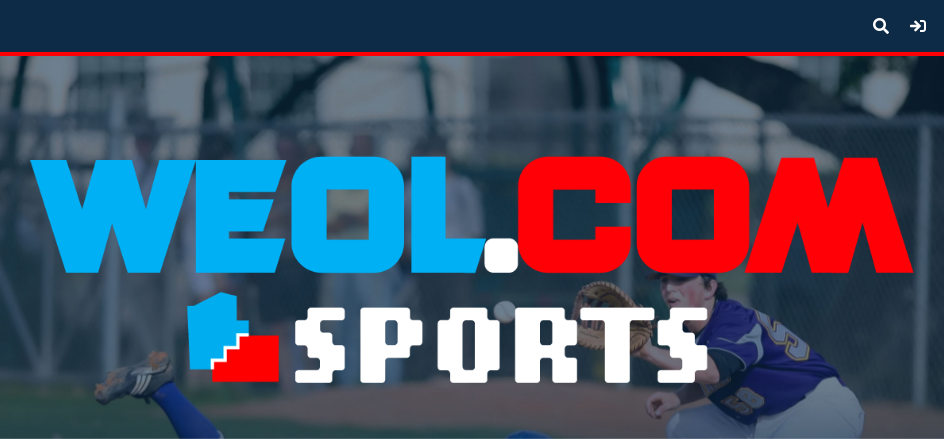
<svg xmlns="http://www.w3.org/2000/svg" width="944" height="439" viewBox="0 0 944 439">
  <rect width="100%" height="100%" fill="#fff"/>
  <image x="0" y="56" width="944" height="383" href="images/1.png"/>
  <rect x="0" y="52" width="944" height="4" fill="#ff0007"/>
  <rect x="0" y="0" width="944" height="52" fill="#0d2a46"/>
  <image x="873" y="18" width="16" height="16" href="images/2.png"/>
  <image x="910" y="20" width="16" height="12" href="images/3.png"/>
  <image x="30" y="156" width="884" height="227" href="images/4.png"/>
</svg>
